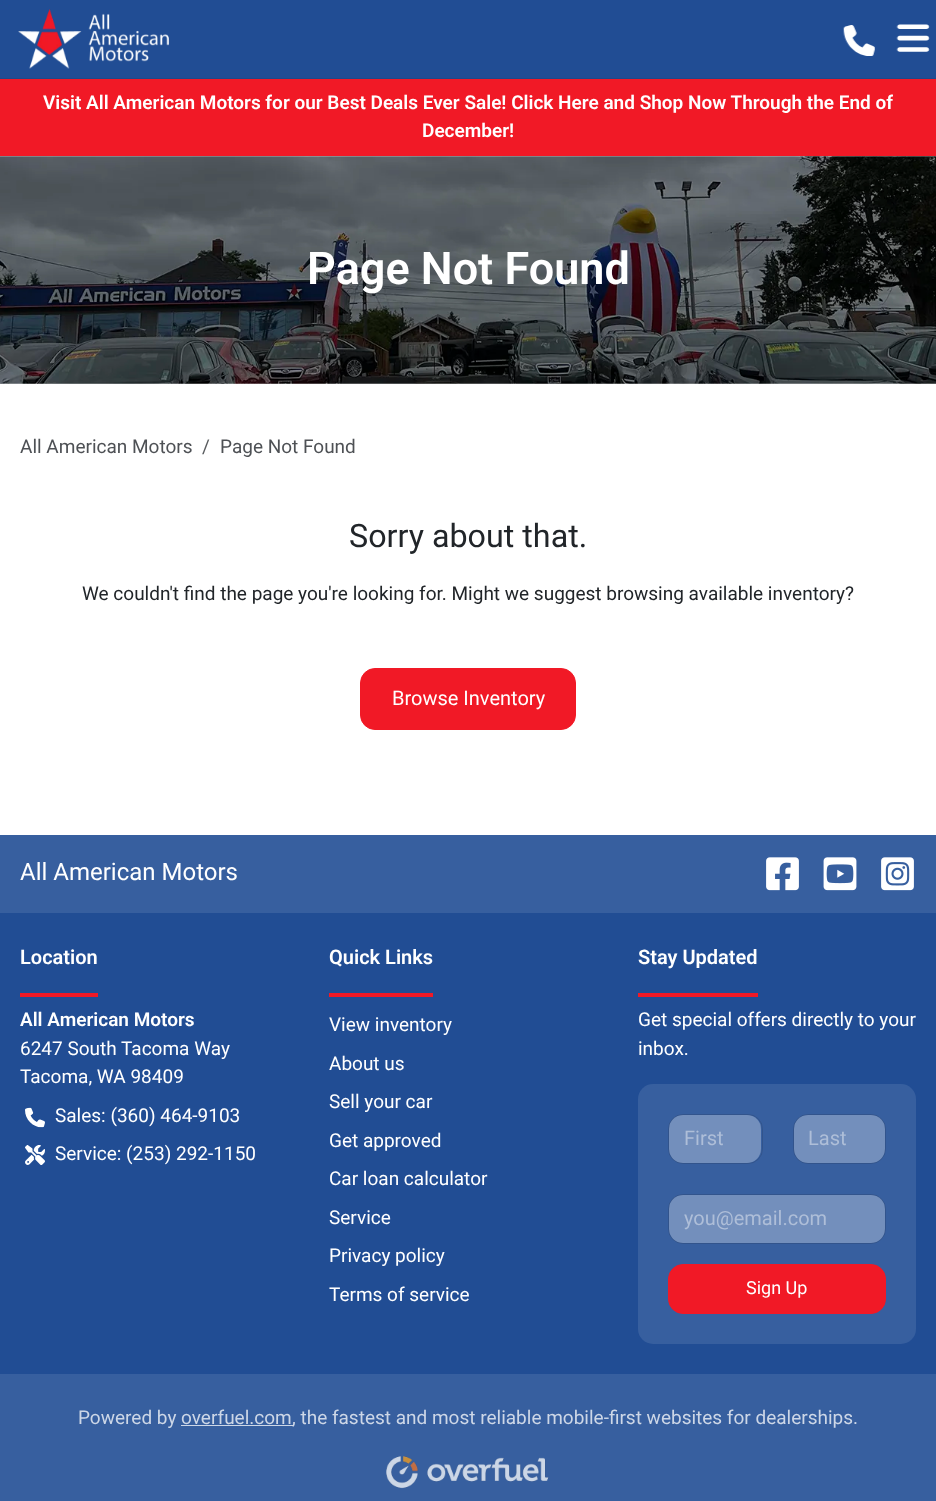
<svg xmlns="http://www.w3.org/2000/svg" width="936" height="1501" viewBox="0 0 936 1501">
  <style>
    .t1 { font: 600 19px Roboto; fill: #fff; }
    .t2 { font: 600 45px Roboto; fill: #fff; }
    .t3 { font: 19px Roboto; fill: #4e5155; }
    .t4 { font: 19px Roboto; fill: #595c5f; }
    .t5 { font: 32.25px Roboto; fill: #212529; }
    .t6 { font: 19px Roboto; fill: #212529; }
    .t7 { font: 20px Roboto; fill: #fff; }
    .t8 { font: 24px Roboto; fill: #fff; }
    .t9 { font: 600 20px Roboto; fill: #fff; }
    .t10 { font: 19px Roboto; fill: #fff; }
    .t11 { font: 20px Roboto; fill: #aebed8; }
    .t12 { font: 18px Roboto; fill: #fff; }
    .t13 { font: 19px Roboto; fill: #cdd7e7; }
  </style>
  <rect width="100%" height="100%" fill="#fff"/>
  <rect x="0" y="0" width="936" height="78" fill="#214d94"/>
  <rect x="0" y="78" width="936" height="1" fill="#204889"/>
  <image x="18" y="9" width="151" height="60" href="images/1.png"/>
  <image x="843" y="25" width="32" height="31" href="images/2.png"/>
  <image x="896" y="24" width="34" height="28" href="images/3.png"/>
  <rect x="0" y="79" width="936" height="77" fill="#f11926"/>
  <text x="43" y="109" class="t1">Visit All American Motors for our Best Deals Ever Sale! Click Here and Shop Now Through the End of</text>
  <text x="422" y="137" class="t1">December!</text>
  <image x="0" y="156" width="936" height="228" href="images/4.png"/>
  <text x="307" y="284" class="t2">Page Not Found</text>
  <text x="20" y="453" class="t3">All American Motors</text>
  <text x="202" y="453" class="t4">/</text>
  <text x="220" y="453" class="t3">Page Not Found</text>
  <text x="349" y="547" class="t5">Sorry about that.</text>
  <text x="82" y="600" class="t6">We couldn't find the page you're looking for. Might we suggest browsing available inventory?</text>
  <rect x="360.5" y="668.5" width="215" height="61" rx="14.5" fill="#f11926" stroke="#f11926"/>
  <text x="392" y="705" class="t7">Browse Inventory</text>
  <rect x="0" y="913" width="936" height="461" fill="#214d94"/>
  <rect x="0" y="835" width="936" height="78" fill="#375f9f"/>
  <text x="20" y="880" class="t8">All American Motors</text>
  <image x="766" y="857" width="33" height="34" href="images/5.png"/>
  <image x="823" y="857" width="34" height="34" href="images/6.png"/>
  <image x="881" y="857" width="33" height="34" href="images/7.png"/>
  <rect x="20" y="993" width="78" height="4" fill="#f11926"/>
  <text x="20" y="964" class="t9">Location</text>
  <text x="20" y="1026" class="t1">All American Motors</text>
  <text x="20" y="1055" class="t10">6247 South Tacoma Way</text>
  <text x="20" y="1083" class="t10">Tacoma, WA 98409</text>
  <image x="25" y="1107" width="20" height="21" href="images/8.png"/>
  <text x="55" y="1122" class="t10">Sales: (360) 464-9103</text>
  <image x="25" y="1145" width="20" height="20" href="images/9.png"/>
  <text x="55" y="1160" class="t10">Service: (253) 292-1150</text>
  <rect x="329" y="993" width="104" height="4" fill="#f11926"/>
  <text x="329" y="964" class="t9">Quick Links</text>
  <text x="329" y="1031" class="t10">View inventory</text>
  <text x="329" y="1070" class="t10">About us</text>
  <text x="329" y="1108" class="t10">Sell your car</text>
  <text x="329" y="1147" class="t10">Get approved</text>
  <text x="329" y="1185" class="t10">Car loan calculator</text>
  <text x="329" y="1224" class="t10">Service</text>
  <text x="329" y="1262" class="t10">Privacy policy</text>
  <text x="329" y="1301" class="t10">Terms of service</text>
  <rect x="638" y="993" width="120" height="4" fill="#f11926"/>
  <text x="638" y="964" class="t9">Stay Updated</text>
  <text x="638" y="1026" class="t10">Get special offers directly to your</text>
  <text x="638" y="1055" class="t10">inbox.</text>
  <rect x="638" y="1084" width="278" height="260" rx="15" fill="#375f9f"/>
  <rect x="669" y="1115" width="92" height="48" rx="14" fill="#738fbc"/>
  <rect x="668.5" y="1114.5" width="94" height="49" rx="14.5" fill="none" stroke="#181c2126"/>
  <text x="684" y="1145" class="t11">First</text>
  <rect x="794" y="1115" width="91" height="48" rx="14" fill="#738fbc"/>
  <rect x="793.5" y="1114.5" width="92" height="49" rx="14.5" fill="none" stroke="#181c2126"/>
  <text x="808" y="1145" class="t11">Last</text>
  <rect x="669" y="1195" width="216" height="48" rx="14" fill="#738fbc"/>
  <rect x="668.5" y="1194.5" width="217" height="49" rx="14.5" fill="none" stroke="#181c2126"/>
  <text x="684" y="1225" class="t11">you@email.com</text>
  <rect x="668.5" y="1264.5" width="217" height="49" rx="14.5" fill="#f11926" stroke="#f11926"/>
  <text x="746" y="1294" class="t12">Sign Up</text>
  <rect x="0" y="1374" width="936" height="127" fill="#375f9f"/>
  <text x="78" y="1424" class="t13">Powered by overfuel.com</text>
  <rect x="181" y="1425" width="112" height="1" fill="#cdd7e7"/>
  <text x="292" y="1424" class="t13">, the fastest and most reliable mobile-first websites for dealerships.</text>
  <image x="386" y="1456" width="163" height="33" href="images/10.png"/>
</svg>
